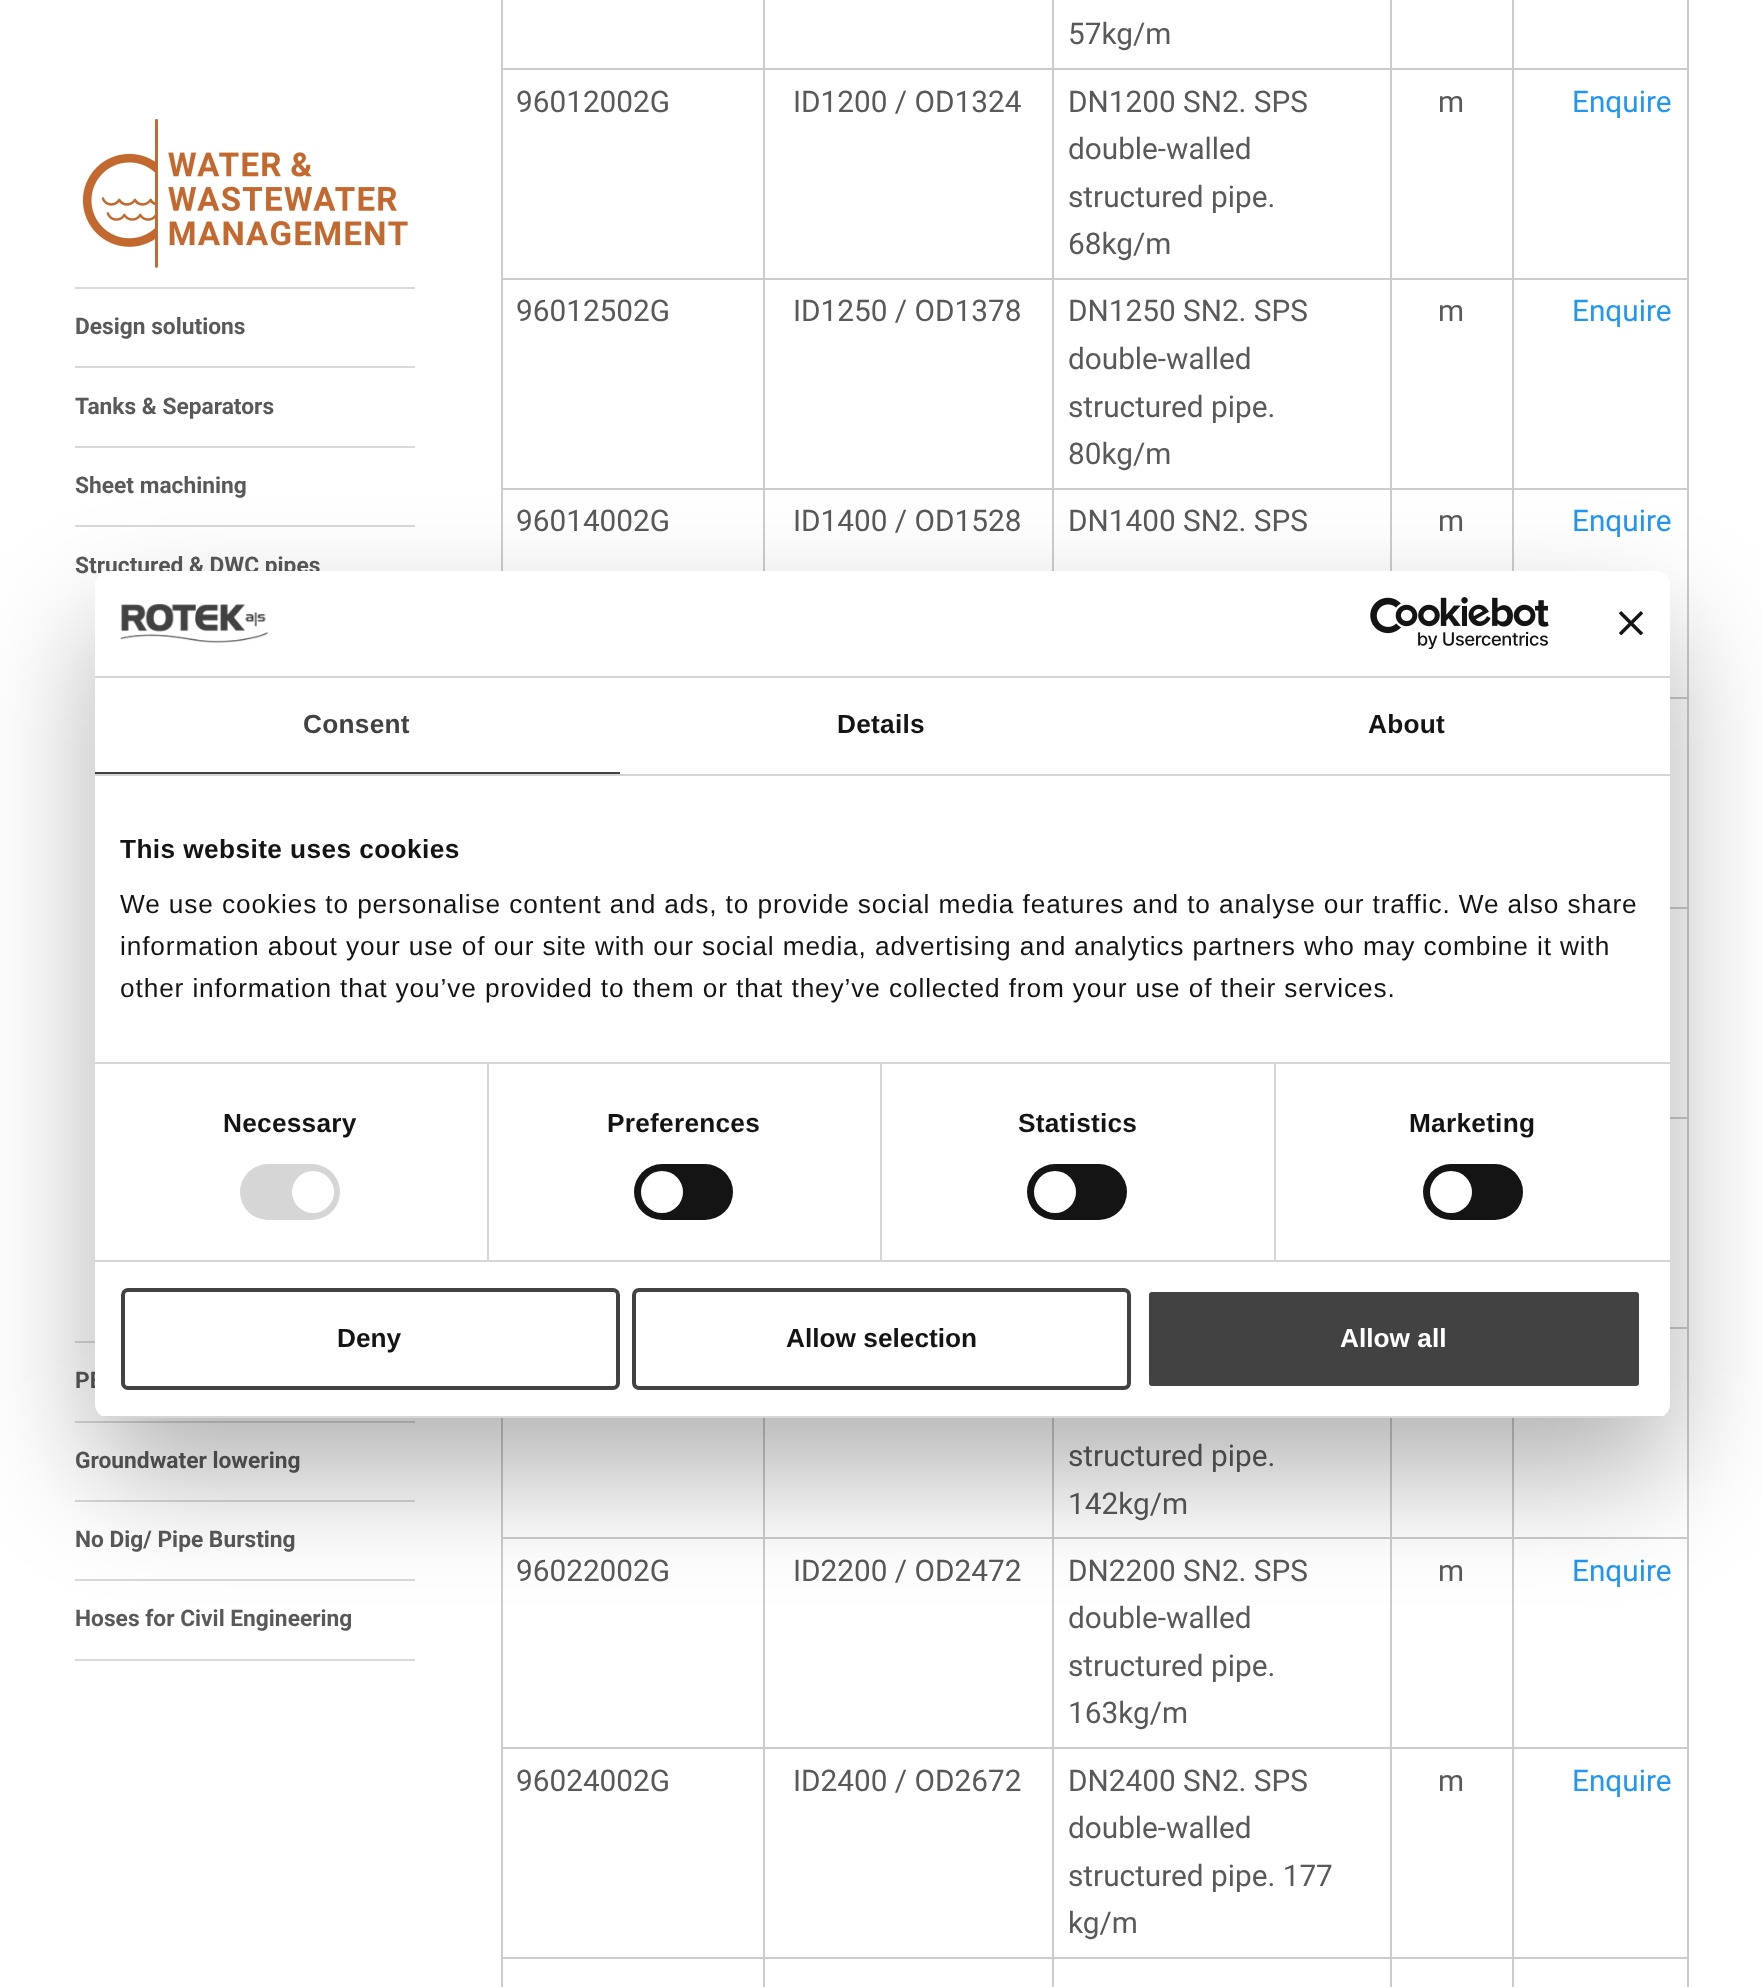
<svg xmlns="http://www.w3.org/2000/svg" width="1762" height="1987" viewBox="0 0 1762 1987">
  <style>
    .t1 { font: bold 22.75px Roboto; fill: #595959; }
    .t2 { font: 29.75px Roboto; fill: #595959; }
    .t3 { font: 29.75px Roboto; fill: #2196f3; }
    .t4 { font: bold 26.25px Liberation Sans; letter-spacing: 0.25px; fill: #424242; }
    .t5 { font: bold 26.25px Liberation Sans; letter-spacing: 0.25px; fill: #141414; }
    .t6 { font: bold 26.25px Liberation Sans; letter-spacing: 0.4px; fill: #141414; }
    .t7 { font: 26.25px Liberation Sans; letter-spacing: 0.88px; fill: #141414; }
    .t8 { font: bold 26.25px Liberation Sans; fill: #141414; }
    .t9 { font: bold 26.25px Liberation Sans; fill: #fff; }
  </style>
  <defs>
    <clipPath id="clip1"><rect x="95" y="571" width="1575" height="847" rx="14"/></clipPath>
  </defs>
  <rect width="100%" height="100%" fill="#fff"/>
  <image x="82" y="119" width="326" height="149" href="images/1.png"/>
  <rect x="75" y="287" width="340" height="2" fill="#d9d9d9"/>
  <text x="75" y="334" class="t1">Design solutions</text>
  <rect x="75" y="366" width="340" height="2" fill="#d9d9d9"/>
  <text x="75" y="414" class="t1">Tanks &amp; Separators</text>
  <rect x="75" y="446" width="340" height="2" fill="#d9d9d9"/>
  <text x="75" y="493" class="t1">Sheet machining</text>
  <rect x="75" y="525" width="340" height="2" fill="#d9d9d9"/>
  <text x="75" y="573" class="t1">Structured &amp; DWC pipes</text>
  <rect x="75" y="1341" width="20" height="2" fill="#d9d9d9"/>
  <text x="75" y="1388" class="t1">PE</text>
  <rect x="75" y="1421" width="340" height="2" fill="#d9d9d9"/>
  <text x="75" y="1468" class="t1">Groundwater lowering</text>
  <rect x="75" y="1500" width="340" height="2" fill="#d9d9d9"/>
  <text x="75" y="1547" class="t1">No Dig/ Pipe Bursting</text>
  <rect x="75" y="1579" width="340" height="2" fill="#d9d9d9"/>
  <rect x="75" y="1659" width="340" height="2" fill="#d9d9d9"/>
  <text x="75" y="1626" class="t1">Hoses for Civil Engineering</text>
  <rect x="1687" y="0" width="2" height="1987" fill="#ccc"/>
  <rect x="501" y="0" width="2" height="68" fill="#ccc"/>
  <rect x="763" y="0" width="2" height="68" fill="#ccc"/>
  <rect x="1052" y="0" width="2" height="68" fill="#ccc"/>
  <text x="1068" y="44" class="t2">57kg/m</text>
  <rect x="1390" y="0" width="2" height="68" fill="#ccc"/>
  <rect x="1512" y="0" width="2" height="68" fill="#ccc"/>
  <rect x="501" y="68" width="1186" height="2" fill="#ccc"/>
  <rect x="501" y="68" width="2" height="210" fill="#ccc"/>
  <text x="516" y="112" class="t2">96012002G</text>
  <rect x="763" y="68" width="2" height="210" fill="#ccc"/>
  <text x="793" y="112" class="t2">ID1200 / OD1324</text>
  <rect x="1052" y="68" width="2" height="210" fill="#ccc"/>
  <text x="1068" y="112" class="t2">DN1200 SN2. SPS</text>
  <text x="1068" y="159" class="t2">double-walled</text>
  <text x="1068" y="207" class="t2">structured pipe.</text>
  <text x="1068" y="254" class="t2">68kg/m</text>
  <rect x="1390" y="68" width="2" height="210" fill="#ccc"/>
  <text x="1438" y="112" class="t2">m</text>
  <rect x="1512" y="68" width="2" height="210" fill="#ccc"/>
  <text x="1572" y="112" class="t3">Enquire</text>
  <rect x="501" y="278" width="1186" height="2" fill="#ccc"/>
  <rect x="501" y="278" width="2" height="210" fill="#ccc"/>
  <text x="516" y="321" class="t2">96012502G</text>
  <rect x="763" y="278" width="2" height="210" fill="#ccc"/>
  <text x="793" y="321" class="t2">ID1250 / OD1378</text>
  <rect x="1052" y="278" width="2" height="210" fill="#ccc"/>
  <text x="1068" y="321" class="t2">DN1250 SN2. SPS</text>
  <text x="1068" y="369" class="t2">double-walled</text>
  <text x="1068" y="417" class="t2">structured pipe.</text>
  <text x="1068" y="464" class="t2">80kg/m</text>
  <rect x="1390" y="278" width="2" height="210" fill="#ccc"/>
  <text x="1438" y="321" class="t2">m</text>
  <rect x="1512" y="278" width="2" height="210" fill="#ccc"/>
  <text x="1572" y="321" class="t3">Enquire</text>
  <rect x="501" y="488" width="1186" height="2" fill="#ccc"/>
  <rect x="501" y="488" width="2" height="83" fill="#ccc"/>
  <text x="516" y="531" class="t2">96014002G</text>
  <rect x="763" y="488" width="2" height="83" fill="#ccc"/>
  <text x="793" y="531" class="t2">ID1400 / OD1528</text>
  <rect x="1052" y="488" width="2" height="83" fill="#ccc"/>
  <text x="1068" y="531" class="t2">DN1400 SN2. SPS</text>
  <rect x="1390" y="488" width="2" height="83" fill="#ccc"/>
  <text x="1438" y="531" class="t2">m</text>
  <rect x="1512" y="488" width="2" height="83" fill="#ccc"/>
  <text x="1572" y="531" class="t3">Enquire</text>
  <rect x="1670" y="697" width="17" height="2" fill="#ccc"/>
  <rect x="1670" y="907" width="17" height="2" fill="#ccc"/>
  <rect x="1670" y="1117" width="17" height="2" fill="#ccc"/>
  <rect x="501" y="1418" width="2" height="119" fill="#ccc"/>
  <rect x="763" y="1418" width="2" height="119" fill="#ccc"/>
  <rect x="1052" y="1418" width="2" height="119" fill="#ccc"/>
  <text x="1068" y="1466" class="t2">structured pipe.</text>
  <text x="1068" y="1514" class="t2">142kg/m</text>
  <rect x="1390" y="1418" width="2" height="119" fill="#ccc"/>
  <rect x="1670" y="1327" width="17" height="2" fill="#ccc"/>
  <rect x="1512" y="1418" width="2" height="119" fill="#ccc"/>
  <rect x="501" y="1537" width="1186" height="2" fill="#ccc"/>
  <rect x="501" y="1537" width="2" height="210" fill="#ccc"/>
  <text x="516" y="1581" class="t2">96022002G</text>
  <rect x="763" y="1537" width="2" height="210" fill="#ccc"/>
  <text x="793" y="1581" class="t2">ID2200 / OD2472</text>
  <rect x="1052" y="1537" width="2" height="210" fill="#ccc"/>
  <text x="1068" y="1581" class="t2">DN2200 SN2. SPS</text>
  <text x="1068" y="1628" class="t2">double-walled</text>
  <text x="1068" y="1676" class="t2">structured pipe.</text>
  <text x="1068" y="1723" class="t2">163kg/m</text>
  <rect x="1390" y="1537" width="2" height="210" fill="#ccc"/>
  <text x="1438" y="1581" class="t2">m</text>
  <rect x="1512" y="1537" width="2" height="210" fill="#ccc"/>
  <text x="1572" y="1581" class="t3">Enquire</text>
  <rect x="501" y="1747" width="1186" height="2" fill="#ccc"/>
  <rect x="501" y="1747" width="2" height="210" fill="#ccc"/>
  <text x="516" y="1791" class="t2">96024002G</text>
  <rect x="763" y="1747" width="2" height="210" fill="#ccc"/>
  <text x="793" y="1791" class="t2">ID2400 / OD2672</text>
  <rect x="1052" y="1747" width="2" height="210" fill="#ccc"/>
  <text x="1068" y="1791" class="t2">DN2400 SN2. SPS</text>
  <text x="1068" y="1838" class="t2">double-walled</text>
  <text x="1068" y="1886" class="t2">structured pipe. 177</text>
  <text x="1068" y="1933" class="t2">kg/m</text>
  <rect x="1390" y="1747" width="2" height="210" fill="#ccc"/>
  <text x="1438" y="1791" class="t2">m</text>
  <rect x="1512" y="1747" width="2" height="210" fill="#ccc"/>
  <text x="1572" y="1791" class="t3">Enquire</text>
  <rect x="501" y="1957" width="1186" height="2" fill="#ccc"/>
  <rect x="501" y="1957" width="2" height="30" fill="#ccc"/>
  <rect x="763" y="1957" width="2" height="30" fill="#ccc"/>
  <rect x="1052" y="1957" width="2" height="30" fill="#ccc"/>
  <rect x="1390" y="1957" width="2" height="30" fill="#ccc"/>
  <rect x="1512" y="1957" width="2" height="30" fill="#ccc"/>
  <rect x="95" y="627" width="1575" height="847" rx="14" fill="#0000004d" filter="blur(59.5px)"/>
  <rect x="95" y="571" width="1575" height="847" rx="14" fill="#fff"/>
  <rect x="95" y="676" width="1575" height="2" fill="#d6d6d6"/>
  <image x="120" y="604" width="148" height="39" href="images/2.png"/>
  <image x="1370" y="597" width="179" height="52" href="images/3.png"/>
  <image x="1619" y="611" width="24" height="24" href="images/4.png"/>
  <rect x="95" y="774" width="1575" height="2" fill="#d6d6d6"/>
  <rect x="95" y="772" width="525" height="2" fill="#424242"/>
  <text x="303" y="733" class="t4">Consent</text>
  <text x="837" y="733" class="t5">Details</text>
  <text x="1368" y="733" class="t5">About</text>
  <rect x="95" y="1062" width="1575" height="2" fill="#d6d6d6"/>
  <text x="120" y="858" class="t6">This website uses cookies</text>
  <text x="120" y="913" class="t7">We use cookies to personalise content and ads, to provide social media features and to analyse our traffic. We also share</text>
  <text x="120" y="955" class="t7">information about your use of our site with our social media, advertising and analytics partners who may combine it with</text>
  <text x="120" y="997" class="t7">other information that you’ve provided to them or that they’ve collected from your use of their services.</text>
  <rect x="95" y="1260" width="1575" height="2" fill="#d6d6d6"/>
  <rect x="487" y="1064" width="2" height="196" fill="#d6d6d6"/>
  <text x="223" y="1132" class="t5">Necessary</text>
  <rect x="240" y="1164" width="100" height="56" rx="28" fill="#d6d6d6"/>
  <circle cx="313" cy="1192" r="21" fill="#fff"/>
  <rect x="880" y="1064" width="2" height="196" fill="#d6d6d6"/>
  <text x="607" y="1132" class="t5">Preferences</text>
  <rect x="634" y="1164" width="99" height="56" rx="28" fill="#141414"/>
  <circle cx="662" cy="1192" r="21" fill="#fff"/>
  <rect x="1274" y="1064" width="2" height="196" fill="#d6d6d6"/>
  <text x="1018" y="1132" class="t5">Statistics</text>
  <rect x="1027" y="1164" width="100" height="56" rx="28" fill="#141414"/>
  <circle cx="1055" cy="1192" r="21" fill="#fff"/>
  <text x="1409" y="1132" class="t5">Marketing</text>
  <rect x="1423" y="1164" width="100" height="56" rx="28" fill="#141414"/>
  <circle cx="1451" cy="1192" r="21" fill="#fff"/>
  <g clip-path="url(#clip1)">
    <rect x="95" y="1416" width="1575" height="2" fill="#d6d6d6"/>
  </g>
  <rect x="123" y="1290" width="495" height="98" rx="5" fill="none" stroke="#424242" stroke-width="4"/>
  <text x="337" y="1347" class="t8">Deny</text>
  <rect x="634" y="1290" width="495" height="98" rx="5" fill="none" stroke="#424242" stroke-width="4"/>
  <text x="786" y="1347" class="t8">Allow selection</text>
  <rect x="1147" y="1290" width="494" height="98" rx="5" fill="#424242" stroke="#fff" stroke-width="4"/>
  <text x="1340" y="1347" class="t9">Allow all</text>
</svg>
